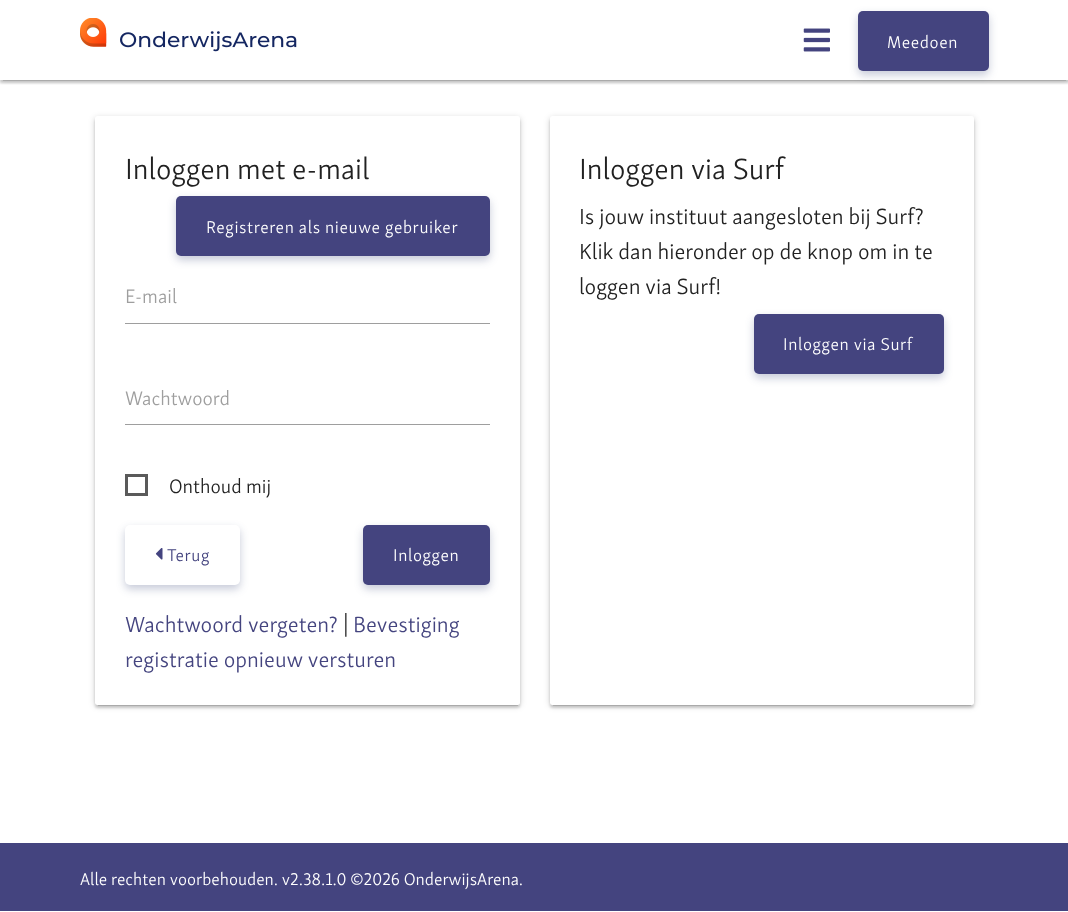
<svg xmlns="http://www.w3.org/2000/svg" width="1068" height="912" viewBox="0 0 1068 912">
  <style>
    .t1 { font: 300 17.5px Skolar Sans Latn; letter-spacing: 0.6px; fill: #fff; }
    .t2 { font: 300 30px Skolar Sans Latn; fill: #212121; }
    .t3 { font: 300 20px Skolar Sans Latn; fill: #9e9e9e; }
    .t4 { font: 300 20px Skolar Sans Latn; fill: #212121; }
    .t5 { font: 300 17.5px Skolar Sans Latn; letter-spacing: 0.6px; fill: #44447f; }
    .t6 { font: 300 22.5px Skolar Sans Latn; fill: #44447f; }
    .t7 { font: 300 22.5px Skolar Sans Latn; fill: #212121; }
    .t8 { font: 300 17.5px Skolar Sans Latn; fill: #fff; }
  </style>
  <defs>
    <clipPath id="clip1"><rect x="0" y="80" width="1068" height="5"/></clipPath>
    <clipPath id="clip2"><rect x="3" y="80" width="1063" height="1"/></clipPath>
    <clipPath id="clip3"><rect x="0" y="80" width="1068" height="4"/></clipPath>
  </defs>
  <rect width="100%" height="100%" fill="#fff"/>
  <g clip-path="url(#clip1)">
    <rect x="0" y="1" width="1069" height="80" fill="#00000033" filter="blur(3px)"/>
  </g>
  <g clip-path="url(#clip2)">
    <rect x="3" y="6" width="1063" height="75" fill="#0000001f" filter="blur(0.5px)"/>
  </g>
  <g clip-path="url(#clip3)">
    <rect x="0" y="3" width="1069" height="80" fill="#00000024" filter="blur(1px)"/>
  </g>
  <image x="80" y="18" width="217" height="34" href="images/1.png"/>
  <image x="803" y="28" width="27" height="24" href="images/2.png"/>
  <rect x="858" y="15" width="131" height="60" rx="5" fill="#1426613d" filter="blur(4px)"/>
  <rect x="858" y="11" width="131" height="60" rx="5" fill="#44447f"/>
  <text x="887" y="48" class="t1">Meedoen</text>
  <rect x="95" y="118" width="425" height="588" rx="2.5" fill="#00000033" filter="blur(3px)"/>
  <rect x="98" y="123" width="420" height="583" fill="#0000001f" filter="blur(0.5px)"/>
  <rect x="95" y="119" width="425" height="589" rx="2.5" fill="#00000024" filter="blur(1px)"/>
  <rect x="95" y="116" width="425" height="589" rx="2.5" fill="#fff"/>
  <text x="125" y="179" class="t2">Inloggen met e-mail</text>
  <rect x="176" y="200" width="314" height="60" rx="5" fill="#1426613d" filter="blur(4px)"/>
  <rect x="176" y="196" width="314" height="60" rx="5" fill="#44447f"/>
  <text x="206" y="233" class="t1">Registreren als nieuwe gebruiker</text>
  <text x="125" y="303" class="t3">E-mail</text>
  <rect x="125" y="323" width="365" height="1" fill="#9e9e9e"/>
  <text x="125" y="405" class="t3">Wachtwoord</text>
  <rect x="125" y="424" width="365" height="1" fill="#9e9e9e"/>
  <rect x="126.5" y="475.5" width="20" height="19" fill="none" stroke="#5a5a5a" stroke-width="3"/>
  <text x="169" y="493" class="t4">Onthoud mij</text>
  <rect x="125" y="529" width="115" height="60" rx="5" fill="#1426613d" filter="blur(4px)"/>
  <rect x="125" y="525" width="115" height="60" rx="5" fill="#fff"/>
  <image x="155" y="548" width="8" height="12" href="images/3.png"/>
  <text x="167" y="561" class="t5">Terug</text>
  <rect x="363" y="529" width="127" height="60" rx="5" fill="#1426613d" filter="blur(4px)"/>
  <rect x="363" y="525" width="127" height="60" rx="5" fill="#44447f"/>
  <text x="393" y="561" class="t1">Inloggen</text>
  <text x="125" y="632" class="t6">Wachtwoord vergeten?</text>
  <text x="343" y="632" class="t7">|</text>
  <text x="353" y="632" class="t6">Bevestiging</text>
  <text x="125" y="667" class="t6">registratie opnieuw versturen</text>
  <rect x="550" y="118" width="424" height="588" rx="2.5" fill="#00000033" filter="blur(3px)"/>
  <rect x="553" y="123" width="418" height="583" fill="#0000001f" filter="blur(0.5px)"/>
  <rect x="550" y="119" width="424" height="589" rx="2.5" fill="#00000024" filter="blur(1px)"/>
  <rect x="550" y="116" width="424" height="589" rx="2.5" fill="#fff"/>
  <text x="579" y="179" class="t2">Inloggen via Surf</text>
  <text x="579" y="224" class="t7">Is jouw instituut aangesloten bij Surf?</text>
  <text x="579" y="259" class="t7">Klik dan hieronder op de knop om in te</text>
  <text x="579" y="294" class="t7">loggen via Surf!</text>
  <rect x="754" y="318" width="190" height="60" rx="5" fill="#1426613d" filter="blur(4px)"/>
  <rect x="754" y="314" width="190" height="60" rx="5" fill="#44447f"/>
  <text x="783" y="350" class="t1">Inloggen via Surf</text>
  <rect x="0" y="843" width="1068" height="68" fill="#44447f"/>
  <text x="80" y="885" class="t8">Alle rechten voorbehouden. v2.38.1.0 ©2026 OnderwijsArena.</text>
</svg>
